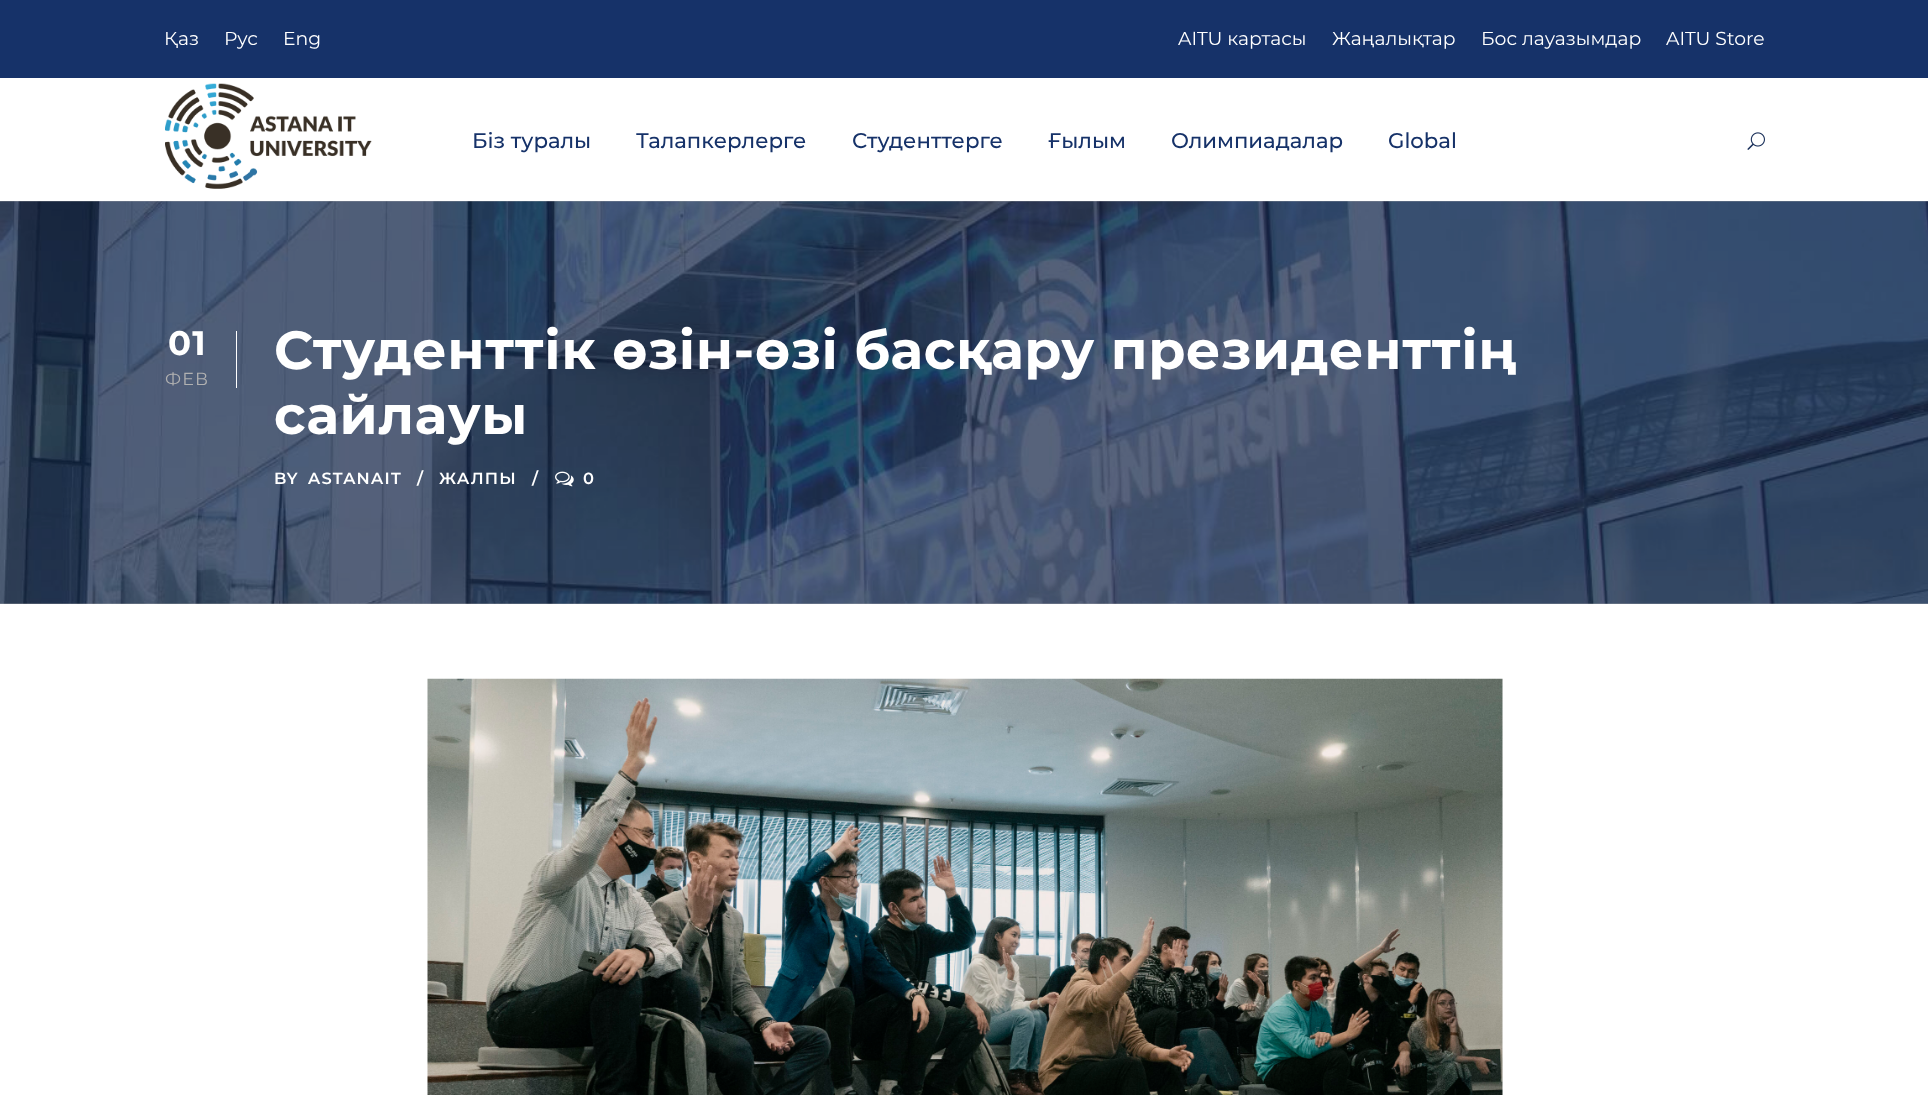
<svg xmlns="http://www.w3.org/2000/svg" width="1928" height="1095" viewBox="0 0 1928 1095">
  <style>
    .t1 { font: 18.75px Montserrat; fill: #fff; }
    .t2 { font: 500 21.25px Montserrat; fill: #163269; }
    .t3 { font: bold 34px Montserrat; letter-spacing: 1.25px; fill: #fff; }
    .t4 { font: 17.5px Montserrat; letter-spacing: 1.25px; fill: #b1b1b1; }
    .t5 { font: bold 53.75px Montserrat; letter-spacing: 0.6px; fill: #fff; }
    .t6 { font: 600 16.25px Montserrat; letter-spacing: 1.25px; fill: #fff; }
  </style>
  <defs>
    <clipPath id="clip1"><rect x="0" y="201" width="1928" height="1"/></clipPath>
  </defs>
  <rect width="100%" height="100%" fill="#fff"/>
  <rect x="0" y="0" width="1928" height="78" fill="#163269"/>
  <text x="164" y="45" class="t1">Қаз</text>
  <text x="224" y="45" class="t1">Рус</text>
  <text x="283" y="45" class="t1">Eng</text>
  <text x="1178" y="45" class="t1">AITU картасы</text>
  <text x="1332" y="45" class="t1">Жаңалықтар</text>
  <text x="1481" y="45" class="t1">Бос лауазымдар</text>
  <text x="1666" y="45" class="t1">AITU Store</text>
  <g clip-path="url(#clip1)">
    <rect x="0" y="79" width="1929" height="124" fill="#0000001a" filter="blur(2.5px)"/>
  </g>
  <image x="165" y="83" width="207" height="106" href="images/1.png"/>
  <text x="472" y="148" class="t2">Біз туралы</text>
  <text x="636" y="148" class="t2">Талапкерлерге</text>
  <text x="852" y="148" class="t2">Студенттерге</text>
  <text x="1048" y="148" class="t2">Ғылым</text>
  <text x="1171" y="148" class="t2">Олимпиадалар</text>
  <text x="1388" y="148" class="t2">Global</text>
  <image x="1747" y="132" width="18" height="18" href="images/2.png"/>
  <image x="0" y="201" width="1928" height="403" href="images/3.png"/>
  <rect x="0" y="201" width="1928" height="403" fill="#00000040"/>
  <rect x="236" y="331" width="1" height="57" fill="#fff"/>
  <text x="168" y="355" class="t3">01</text>
  <text x="165" y="385" class="t4">ФЕВ</text>
  <text x="274" y="369" class="t5">Студенттік өзін-өзі басқару президенттің</text>
  <text x="274" y="434" class="t5">сайлауы</text>
  <text x="274" y="484" class="t6">BY</text>
  <text x="308" y="484" class="t6">ASTANAIT</text>
  <text x="417" y="484" class="t6">/</text>
  <text x="439" y="484" class="t6">ЖАЛПЫ</text>
  <text x="532" y="484" class="t6">/</text>
  <image x="555" y="471" width="19" height="16" href="images/4.png"/>
  <text x="583" y="484" class="t6">0</text>
  <image x="427" y="678" width="1076" height="417" href="images/5.png"/>
</svg>
